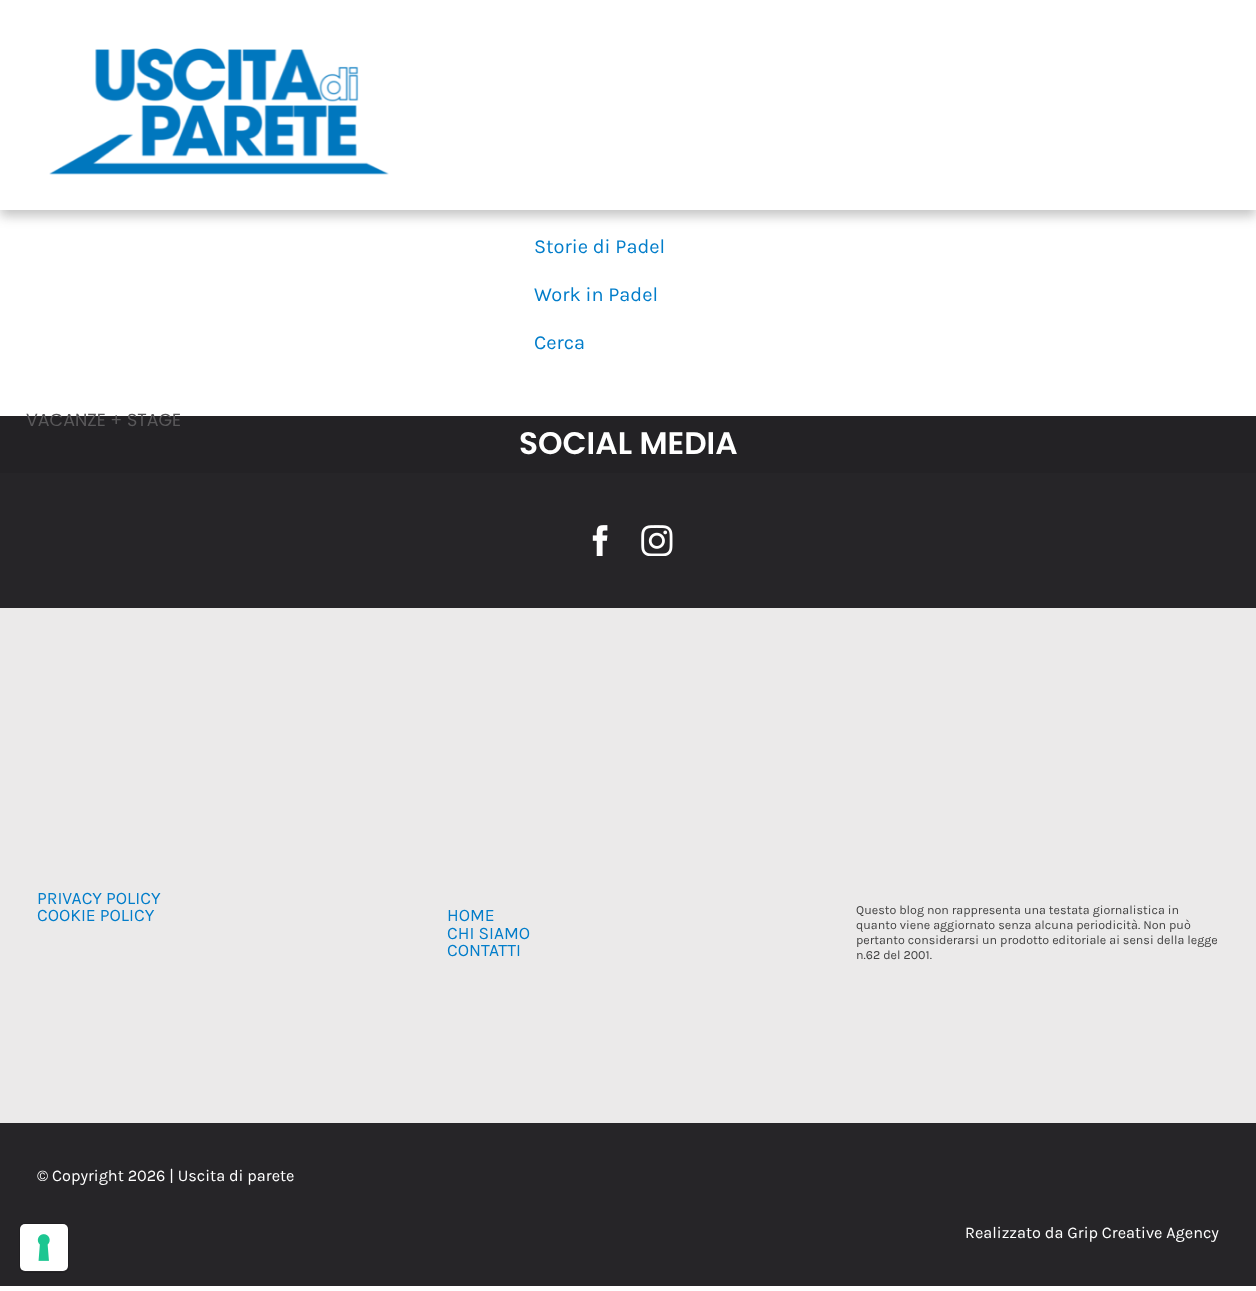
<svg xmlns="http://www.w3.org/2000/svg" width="1256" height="1291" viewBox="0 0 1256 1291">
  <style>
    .t1 { font: 20px Karla; fill: #027dca; }
    .t2 { font: 17.5px Poppins; fill: #59585a; }
    .t3 { font: 600 31.25px Poppins; fill: #fff; }
    .t4 { font: 17.5px Karla; fill: #027dca; }
    .t5 { font: 12.5px Karla; fill: #424242; }
    .t6 { font: 16.25px Karla; fill: #fff; }
  </style>
  <rect width="100%" height="100%" fill="#fff"/>
  <text x="534" y="253" class="t1">Storie di Padel</text>
  <text x="534" y="301" class="t1">Work in Padel</text>
  <text x="534" y="349" class="t1">Cerca</text>
  <rect x="0" y="6" width="1256" height="210" fill="#3d3d3d4d" filter="blur(6px)"/>
  <rect x="0" y="0" width="1256" height="210" fill="#fff"/>
  <image x="49" y="48" width="340" height="127" href="images/1.png"/>
  <rect x="0" y="416" width="1256" height="57" fill="#232225"/>
  <text x="26" y="426" class="t2">VACANZE + STAGE</text>
  <text x="519" y="454" class="t3">SOCIAL MEDIA</text>
  <rect x="0" y="473" width="1256" height="135" fill="#262528"/>
  <image x="592" y="525" width="16" height="31" href="images/2.png"/>
  <image x="641" y="525" width="32" height="31" href="images/3.png"/>
  <rect x="0" y="608" width="1256" height="515" fill="#ebeaea"/>
  <text x="37" y="904" class="t4">PRIVACY POLICY</text>
  <text x="37" y="921" class="t4">COOKIE POLICY</text>
  <text x="447" y="921" class="t4">HOME</text>
  <text x="447" y="939" class="t4">CHI SIAMO</text>
  <text x="447" y="956" class="t4">CONTATTI</text>
  <text x="856" y="914" class="t5">Questo blog non rappresenta una testata giornalistica in</text>
  <text x="856" y="929" class="t5">quanto viene aggiornato senza alcuna periodicità. Non può</text>
  <text x="856" y="944" class="t5">pertanto considerarsi un prodotto editoriale ai sensi della legge</text>
  <text x="856" y="959" class="t5">n.62 del 2001.</text>
  <rect x="0" y="1123" width="1256" height="163" fill="#262528"/>
  <text x="37" y="1181" class="t6">© Copyright 2026 | Uscita di parete</text>
  <text x="965" y="1238" class="t6">Realizzato da Grip Creative Agency</text>
  <rect x="19.5" y="1223.5" width="49" height="49" rx="5.5" fill="none" stroke="#201f22"/>
  <rect x="20" y="1224" width="48" height="47" rx="5" fill="#fff"/>
  <image x="37" y="1234" width="13" height="27" href="images/4.png"/>
</svg>
